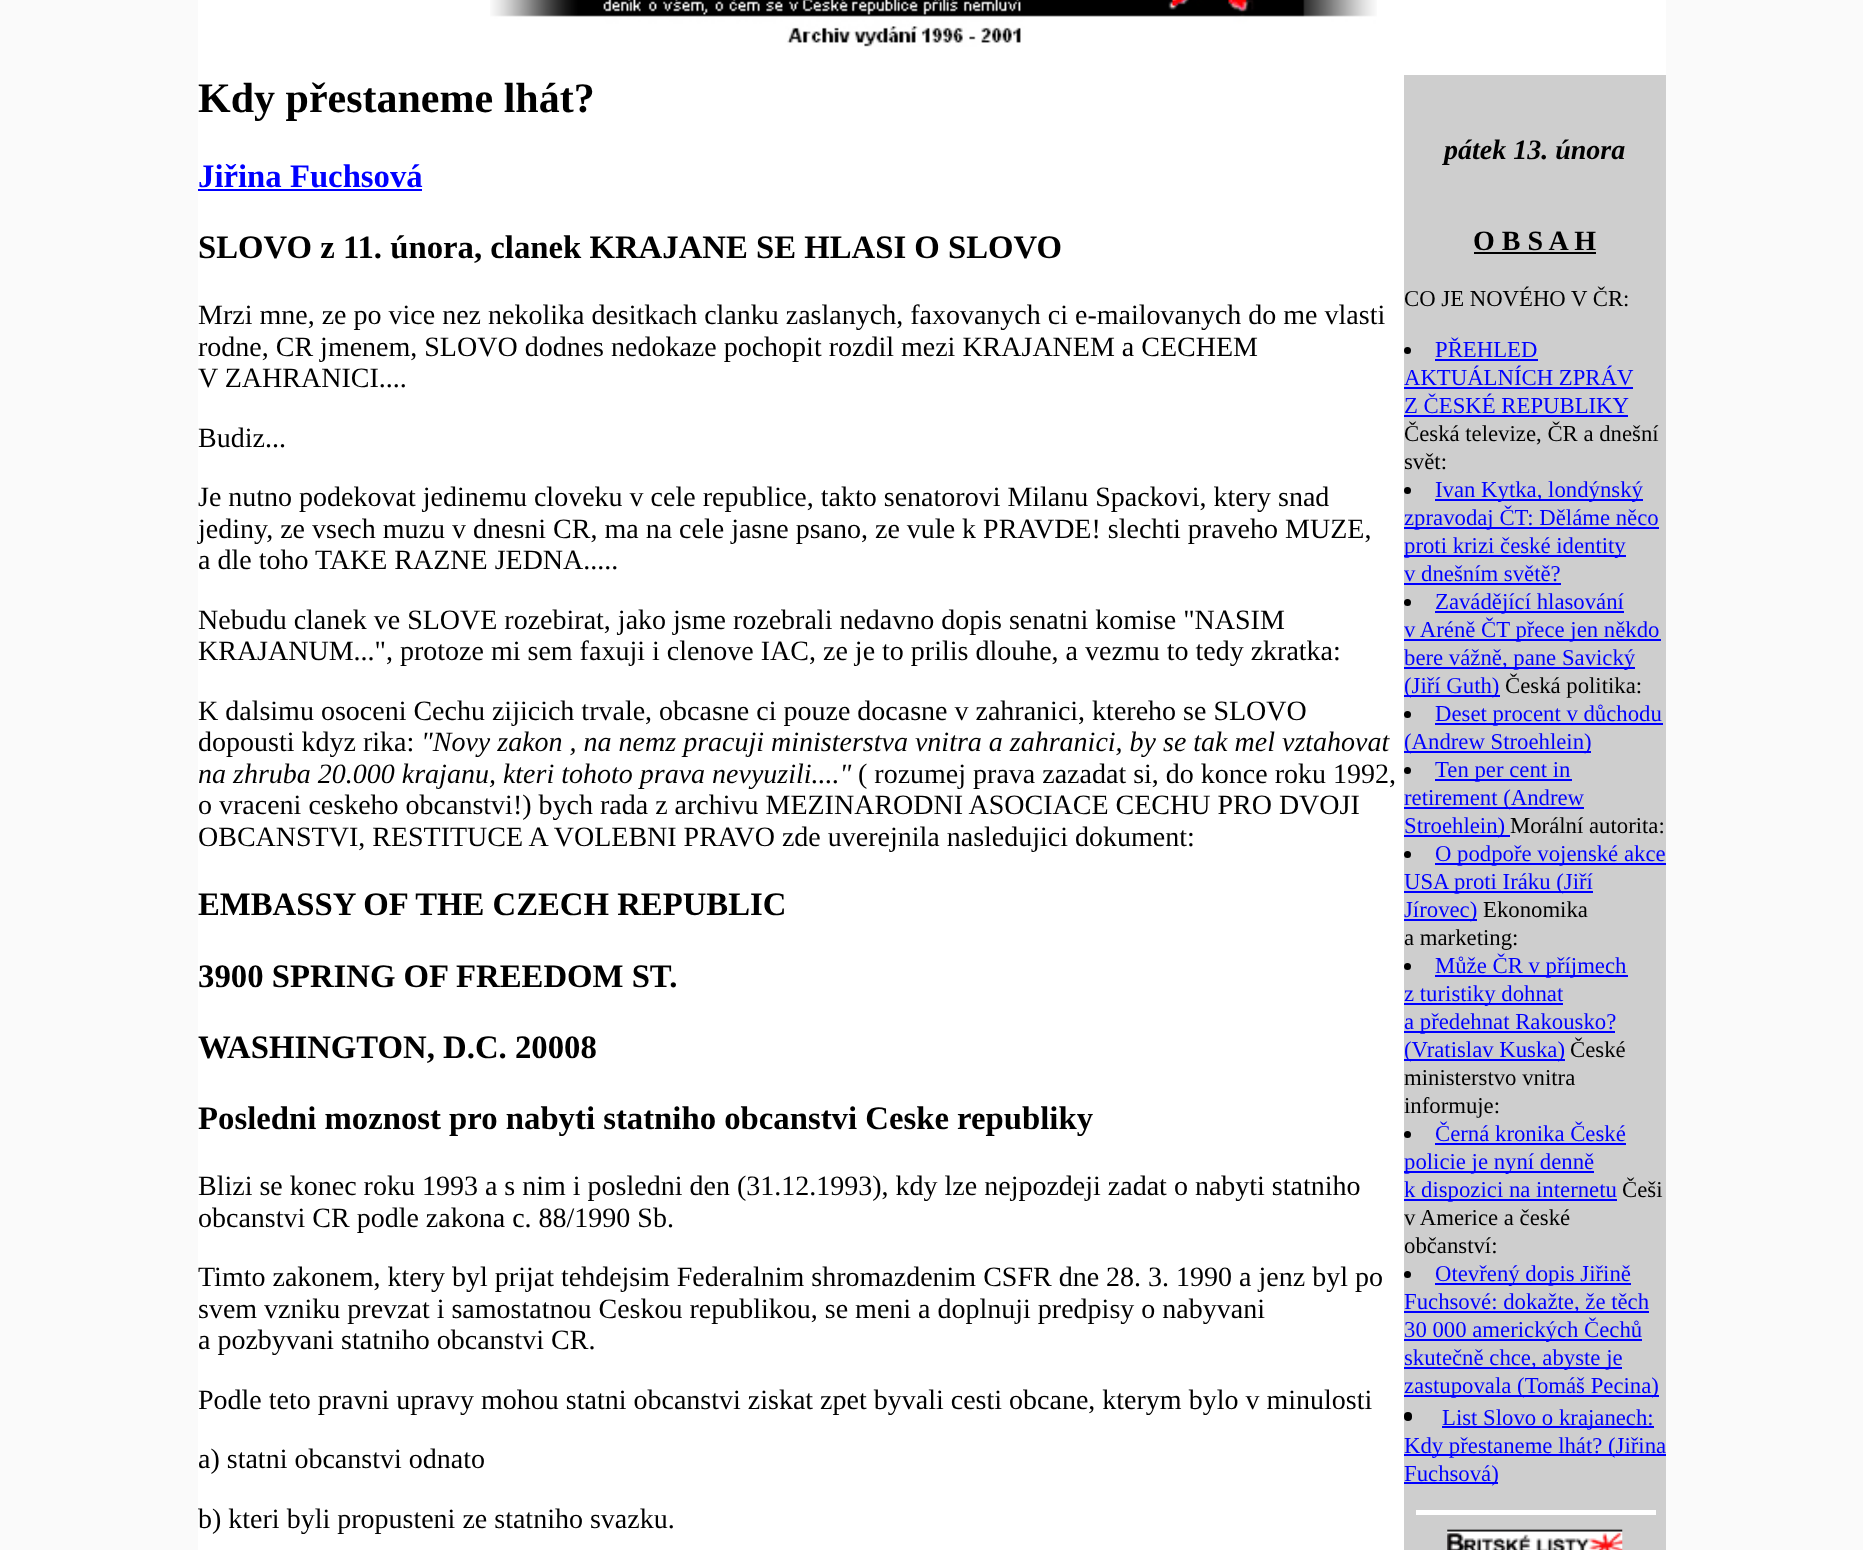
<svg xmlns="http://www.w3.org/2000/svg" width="1863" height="1550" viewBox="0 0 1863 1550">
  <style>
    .t1 { font: bold 42px Liberation Serif; fill: #000; }
    .t2 { font: bold 32.75px Liberation Serif; fill: #00f; }
    .t3 { font: italic bold 28px Liberation Serif; fill: #000; }
    .t4 { font: bold 28px Liberation Serif; fill: #000; }
    .t5 { font: 22.75px Liberation Serif; fill: #000; }
    .t6 { font: 22.75px Liberation Serif; fill: #00f; }
    .t7 { font: bold 32.75px Liberation Serif; fill: #000; }
    .t8 { font: 28px Liberation Serif; fill: #000; }
    .t9 { font: italic 28px Liberation Serif; fill: #000; }
  </style>
  <rect width="100%" height="100%" fill="#fafafa"/>
  <rect x="198" y="0" width="1468" height="1550" fill="#fff"/>
  <image x="490" y="0" width="887" height="47" href="images/1.png"/>
  <text x="198" y="112" class="t1">Kdy přestaneme lhát?</text>
  <text x="198" y="187" class="t2">Jiřina Fuchsová</text>
  <rect x="198" y="189" width="224" height="2" fill="#00f"/>
  <rect x="1404" y="75" width="262" height="1475" fill="#cecece"/>
  <text x="1444" y="159" class="t3">pátek 13. února</text>
  <text x="1473" y="250" class="t4">O B S A H</text>
  <rect x="1474" y="252" width="122" height="2" fill="#000"/>
  <text x="1404" y="306" class="t5">CO JE NOVÉHO V ČR:</text>
  <circle cx="1407.5" cy="350.5" r="3.5" fill="#000"/>
  <text x="1435" y="357" class="t6">PŘEHLED</text>
  <rect x="1435" y="359" width="103" height="2" fill="#00f"/>
  <text x="1404" y="385" class="t6">AKTUÁLNÍCH ZPRÁV</text>
  <rect x="1404" y="387" width="229" height="2" fill="#00f"/>
  <text x="1404" y="413" class="t6">Z ČESKÉ REPUBLIKY</text>
  <rect x="1404" y="415" width="224" height="2" fill="#00f"/>
  <text x="1404" y="441" class="t5">Česká televize, ČR a dnešní</text>
  <text x="1404" y="469" class="t5">svět:</text>
  <circle cx="1407.5" cy="490.5" r="3.5" fill="#000"/>
  <rect x="1435" y="499" width="208" height="2" fill="#00f"/>
  <text x="1435" y="497" class="t6">Ivan Kytka, londýnský</text>
  <rect x="1404" y="527" width="255" height="2" fill="#00f"/>
  <text x="1404" y="525" class="t6">zpravodaj ČT: Děláme něco</text>
  <rect x="1404" y="555" width="222" height="2" fill="#00f"/>
  <text x="1404" y="553" class="t6">proti krizi české identity</text>
  <text x="1404" y="581" class="t6">v dnešním světě?</text>
  <rect x="1404" y="583" width="157" height="2" fill="#00f"/>
  <circle cx="1407.5" cy="602.5" r="3.5" fill="#000"/>
  <rect x="1435" y="611" width="189" height="2" fill="#00f"/>
  <text x="1435" y="609" class="t6">Zavádějící hlasování</text>
  <rect x="1404" y="639" width="257" height="2" fill="#00f"/>
  <text x="1404" y="637" class="t6">v Aréně ČT přece jen někdo</text>
  <rect x="1404" y="667" width="231" height="2" fill="#00f"/>
  <text x="1404" y="665" class="t6">bere vážně, pane Savický</text>
  <rect x="1404" y="695" width="96" height="2" fill="#00f"/>
  <text x="1404" y="693" class="t6">(Jiří Guth)</text>
  <text x="1505" y="693" class="t5">Česká politika:</text>
  <circle cx="1407.5" cy="714.5" r="3.5" fill="#000"/>
  <rect x="1435" y="723" width="228" height="2" fill="#00f"/>
  <text x="1435" y="721" class="t6">Deset procent v důchodu</text>
  <rect x="1404" y="751" width="187" height="2" fill="#00f"/>
  <text x="1404" y="749" class="t6">(Andrew Stroehlein)</text>
  <circle cx="1407.5" cy="770.5" r="3.5" fill="#000"/>
  <rect x="1435" y="779" width="137" height="2" fill="#00f"/>
  <text x="1435" y="777" class="t6">Ten per cent in</text>
  <rect x="1404" y="807" width="180" height="2" fill="#00f"/>
  <text x="1404" y="805" class="t6">retirement (Andrew</text>
  <rect x="1404" y="835" width="106" height="2" fill="#00f"/>
  <text x="1404" y="833" class="t6">Stroehlein)</text>
  <text x="1510" y="833" class="t5">Morální autorita:</text>
  <circle cx="1407.5" cy="854.5" r="3.5" fill="#000"/>
  <rect x="1435" y="863" width="231" height="2" fill="#00f"/>
  <text x="1435" y="861" class="t6">O podpoře vojenské akce</text>
  <rect x="1404" y="891" width="189" height="2" fill="#00f"/>
  <text x="1404" y="889" class="t6">USA proti Iráku (Jiří</text>
  <rect x="1404" y="919" width="73" height="2" fill="#00f"/>
  <text x="1404" y="917" class="t6">Jírovec)</text>
  <text x="1483" y="917" class="t5">Ekonomika</text>
  <text x="1404" y="945" class="t5">a marketing:</text>
  <circle cx="1407.5" cy="966.5" r="3.5" fill="#000"/>
  <rect x="1435" y="975" width="193" height="2" fill="#00f"/>
  <text x="1435" y="973" class="t6">Může ČR v příjmech</text>
  <rect x="1404" y="1003" width="159" height="2" fill="#00f"/>
  <text x="1404" y="1001" class="t6">z turistiky dohnat</text>
  <rect x="1404" y="1031" width="211" height="2" fill="#00f"/>
  <text x="1404" y="1029" class="t6">a předehnat Rakousko?</text>
  <rect x="1404" y="1059" width="161" height="2" fill="#00f"/>
  <text x="1404" y="1057" class="t6">(Vratislav Kuska)</text>
  <text x="1570" y="1057" class="t5">České</text>
  <text x="1404" y="1085" class="t5">ministerstvo vnitra</text>
  <text x="1404" y="1113" class="t5">informuje:</text>
  <circle cx="1407.5" cy="1134.5" r="3.5" fill="#000"/>
  <text x="1435" y="1141" class="t6">Černá kronika České</text>
  <rect x="1435" y="1143" width="191" height="2" fill="#00f"/>
  <rect x="1404" y="1171" width="190" height="2" fill="#00f"/>
  <text x="1404" y="1169" class="t6">policie je nyní denně</text>
  <rect x="1404" y="1199" width="213" height="2" fill="#00f"/>
  <text x="1404" y="1197" class="t6">k dispozici na internetu</text>
  <text x="1622" y="1197" class="t5">Češi</text>
  <text x="1404" y="1225" class="t5">v Americe a české</text>
  <text x="1404" y="1253" class="t5">občanství:</text>
  <circle cx="1407.5" cy="1274.5" r="3.5" fill="#000"/>
  <rect x="1435" y="1283" width="196" height="2" fill="#00f"/>
  <text x="1435" y="1281" class="t6">Otevřený dopis Jiřině</text>
  <rect x="1404" y="1311" width="245" height="2" fill="#00f"/>
  <text x="1404" y="1309" class="t6">Fuchsové: dokažte, že těch</text>
  <rect x="1404" y="1339" width="238" height="2" fill="#00f"/>
  <text x="1404" y="1337" class="t6">30 000 amerických Čechů</text>
  <rect x="1404" y="1367" width="218" height="2" fill="#00f"/>
  <text x="1404" y="1365" class="t6">skutečně chce, abyste je</text>
  <rect x="1404" y="1395" width="255" height="2" fill="#00f"/>
  <text x="1404" y="1393" class="t6">zastupovala (Tomáš Pecina)</text>
  <rect x="1442" y="1426" width="212" height="2" fill="#00f"/>
  <text x="1442" y="1425" class="t6">List Slovo o krajanech:</text>
  <rect x="1404" y="1454" width="262" height="2" fill="#00f"/>
  <text x="1404" y="1453" class="t6">Kdy přestaneme lhát? (Jiřina</text>
  <rect x="1404" y="1482" width="94" height="2" fill="#00f"/>
  <text x="1404" y="1481" class="t6">Fuchsová)</text>
  <rect x="1416" y="1510" width="240" height="5" fill="#fff"/>
  <image x="1447" y="1529" width="176" height="21" href="images/2.png"/>
  <rect x="1404" y="1412" width="8" height="9" rx="4" fill="#000"/>
  <text x="198" y="258" class="t7">SLOVO z 11. února, clanek KRAJANE SE HLASI O SLOVO</text>
  <text x="198" y="324" class="t8">Mrzi mne, ze po vice nez nekolika desitkach clanku zaslanych, faxovanych ci e-mailovanych do me vlasti</text>
  <text x="198" y="356" class="t8">rodne, CR jmenem, SLOVO dodnes nedokaze pochopit rozdil mezi KRAJANEM a CECHEM</text>
  <text x="198" y="387" class="t8">V ZAHRANICI....</text>
  <text x="198" y="447" class="t8">Budiz...</text>
  <text x="198" y="506" class="t8">Je nutno podekovat jedinemu cloveku v cele republice, takto senatorovi Milanu Spackovi, ktery snad</text>
  <text x="198" y="538" class="t8">jediny, ze vsech muzu v dnesni CR, ma na cele jasne psano, ze vule k PRAVDE! slechti praveho MUZE,</text>
  <text x="198" y="569" class="t8">a dle toho TAKE RAZNE JEDNA.....</text>
  <text x="198" y="629" class="t8">Nebudu clanek ve SLOVE rozebirat, jako jsme rozebrali nedavno dopis senatni komise "NASIM</text>
  <text x="198" y="660" class="t8">KRAJANUM...", protoze mi sem faxuji i clenove IAC, ze je to prilis dlouhe, a vezmu to tedy zkratka:</text>
  <text x="198" y="720" class="t8">K dalsimu osoceni Cechu zijicich trvale, obcasne ci pouze docasne v zahranici, ktereho se SLOVO</text>
  <text x="198" y="751" class="t8">dopousti kdyz rika:</text>
  <text x="421" y="751" class="t9">"Novy zakon , na nemz pracuji ministerstva vnitra a zahranici, by se tak mel vztahovat</text>
  <text x="198" y="783" class="t9">na zhruba 20.000 krajanu, kteri tohoto prava nevyuzili...."</text>
  <text x="858" y="783" class="t8">( rozumej prava zazadat si, do konce roku 1992,</text>
  <text x="198" y="814" class="t8">o vraceni ceskeho obcanstvi!) bych rada z archivu MEZINARODNI ASOCIACE CECHU PRO DVOJI</text>
  <text x="198" y="846" class="t8">OBCANSTVI, RESTITUCE A VOLEBNI PRAVO zde uverejnila nasledujici dokument:</text>
  <text x="198" y="915" class="t7">EMBASSY OF THE CZECH REPUBLIC</text>
  <text x="198" y="987" class="t7">3900 SPRING OF FREEDOM ST.</text>
  <text x="198" y="1058" class="t7">WASHINGTON, D.C. 20008</text>
  <text x="198" y="1129" class="t7">Posledni moznost pro nabyti statniho obcanstvi Ceske republiky</text>
  <text x="198" y="1195" class="t8">Blizi se konec roku 1993 a s nim i posledni den (31.12.1993), kdy lze nejpozdeji zadat o nabyti statniho</text>
  <text x="198" y="1227" class="t8">obcanstvi CR podle zakona c. 88/1990 Sb.</text>
  <text x="198" y="1286" class="t8">Timto zakonem, ktery byl prijat tehdejsim Federalnim shromazdenim CSFR dne 28. 3. 1990 a jenz byl po</text>
  <text x="198" y="1318" class="t8">svem vzniku prevzat i samostatnou Ceskou republikou, se meni a doplnuji predpisy o nabyvani</text>
  <text x="198" y="1349" class="t8">a pozbyvani statniho obcanstvi CR.</text>
  <text x="198" y="1409" class="t8">Podle teto pravni upravy mohou statni obcanstvi ziskat zpet byvali cesti obcane, kterym bylo v minulosti</text>
  <text x="198" y="1468" class="t8">a) statni obcanstvi odnato</text>
  <text x="198" y="1528" class="t8">b) kteri byli propusteni ze statniho svazku.</text>
</svg>
